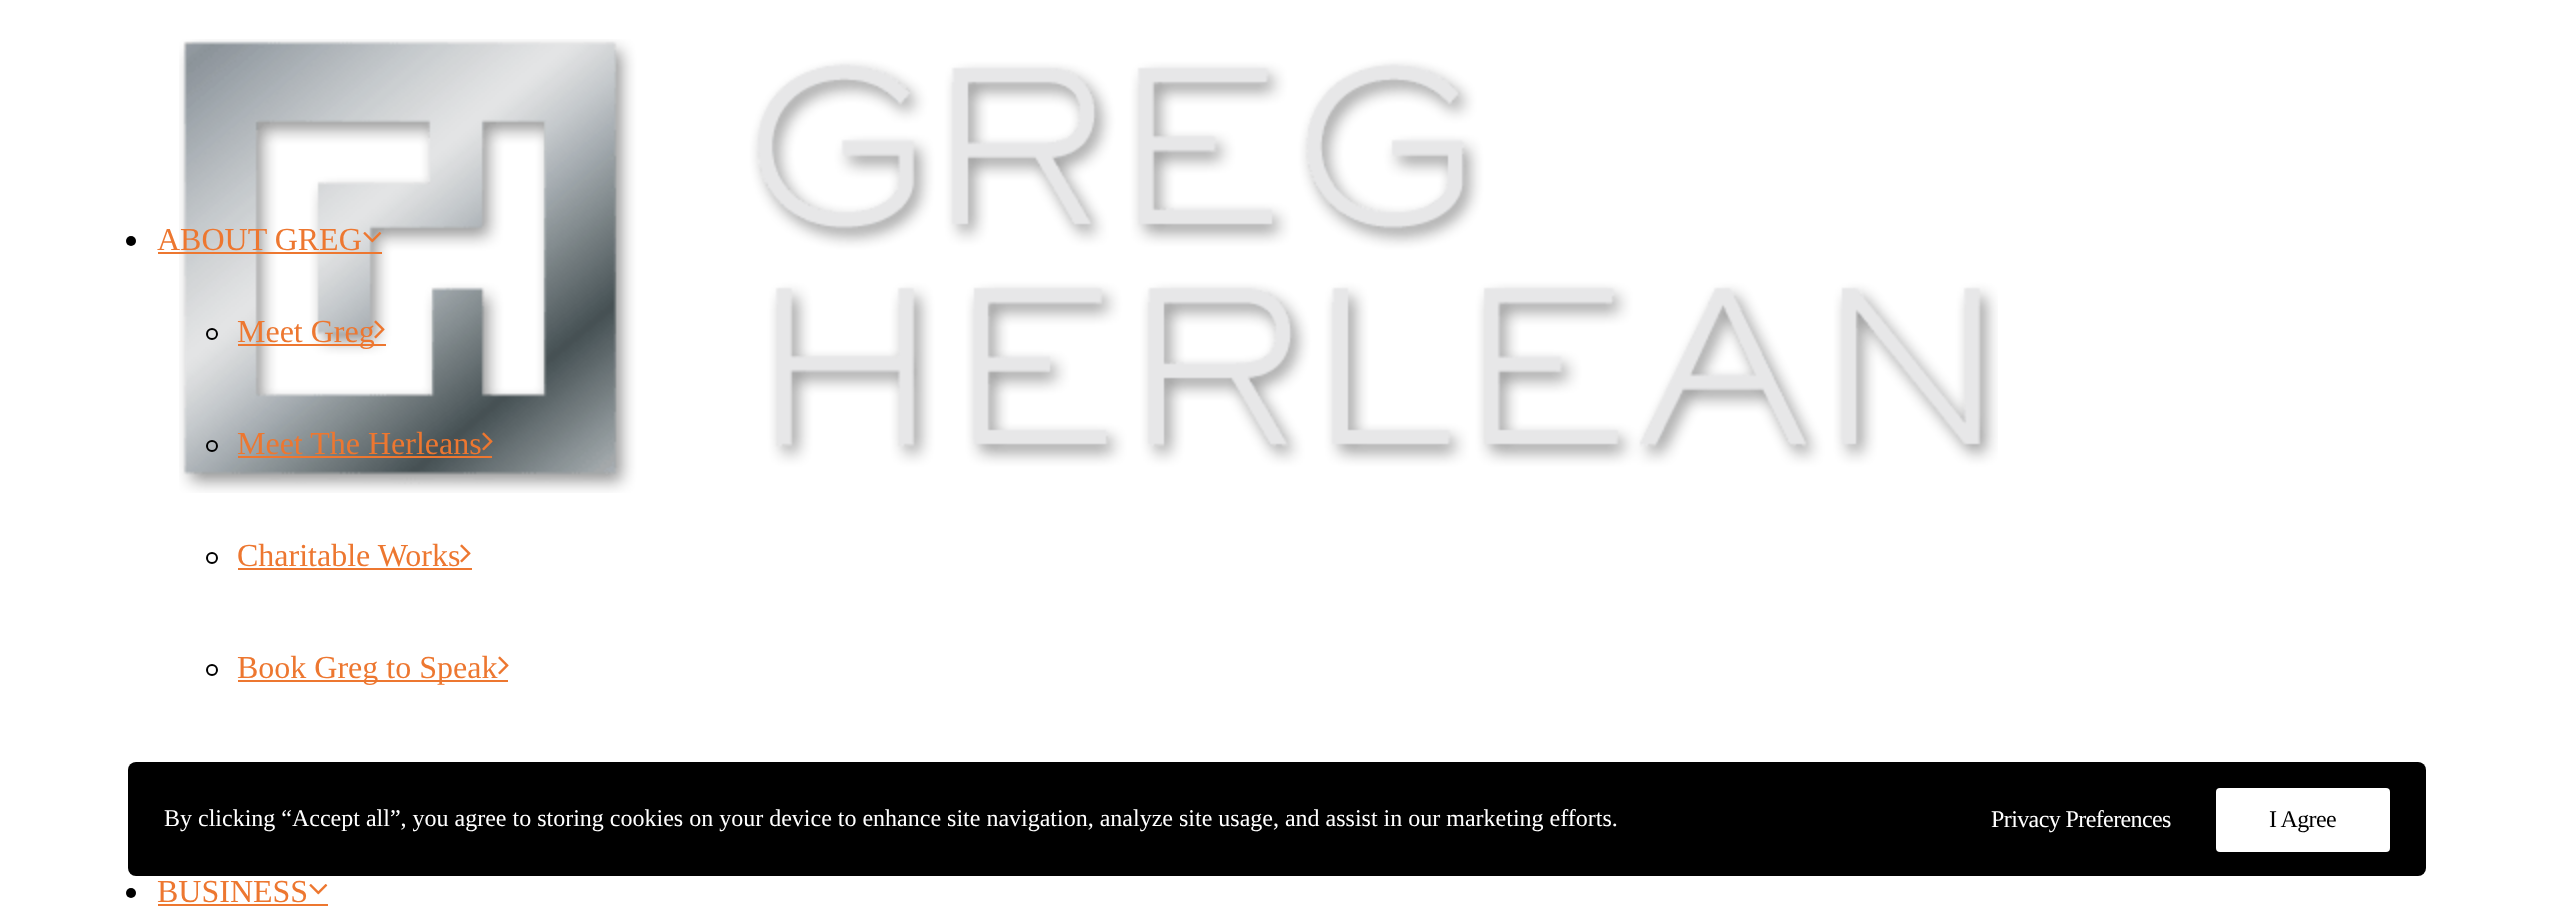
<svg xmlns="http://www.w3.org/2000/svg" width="2553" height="911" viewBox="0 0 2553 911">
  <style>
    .t1 { font: 32px Liberation Serif; fill: #ed7730; }
    .t2 { font: 24px Liberation Serif; fill: #fff; }
    .t3 { font: 24px Liberation Serif; letter-spacing: -0.6px; fill: #fff; }
    .t4 { font: 24px Liberation Serif; letter-spacing: -0.6px; fill: #000; }
  </style>
  <rect width="100%" height="100%" fill="#fff"/>
  <image x="179" y="39" width="1819" height="454" href="images/1.png"/>
  <circle cx="131" cy="241" r="5" fill="#000"/>
  <text x="157" y="250" class="t1">ABOUT GREG</text>
  <rect x="158" y="252" width="224" height="2" fill="#ed7730"/>
  <image x="363" y="232" width="19" height="11" href="images/2.png"/>
  <circle cx="212" cy="334" r="5" fill="none" stroke="#000" stroke-width="2"/>
  <rect x="238" y="344" width="136" height="2" fill="#ed7730"/>
  <text x="237" y="342" class="t1">Meet Greg</text>
  <rect x="374" y="344" width="12" height="2" fill="#ed7730"/>
  <image x="374" y="320" width="11" height="19" href="images/3.png"/>
  <circle cx="212" cy="446" r="5" fill="none" stroke="#000" stroke-width="2"/>
  <text x="237" y="454" class="t1">Meet The Herleans</text>
  <rect x="238" y="456" width="254" height="2" fill="#ed7730"/>
  <image x="482" y="432" width="11" height="19" href="images/4.png"/>
  <circle cx="212" cy="558" r="5" fill="none" stroke="#000" stroke-width="2"/>
  <text x="237" y="566" class="t1">Charitable Works</text>
  <rect x="238" y="568" width="234" height="2" fill="#ed7730"/>
  <image x="460" y="544" width="11" height="19" href="images/5.png"/>
  <circle cx="212" cy="670" r="5" fill="none" stroke="#000" stroke-width="2"/>
  <rect x="238" y="680" width="270" height="2" fill="#ed7730"/>
  <text x="237" y="678" class="t1">Book Greg to Speak</text>
  <image x="498" y="656" width="11" height="19" href="images/5.png"/>
  <circle cx="131" cy="893" r="5" fill="#000"/>
  <text x="157" y="902" class="t1">BUSINESS</text>
  <rect x="158" y="904" width="170" height="2" fill="#ed7730"/>
  <image x="309" y="884" width="19" height="11" href="images/6.png"/>
  <rect x="128" y="762" width="2298" height="114" rx="8" fill="#000"/>
  <text x="164" y="826" class="t2">By clicking “Accept all”, you agree to storing cookies on your device to enhance site navigation, analyze site usage, and assist in our marketing efforts.</text>
  <text x="1991" y="827" class="t3">Privacy Preferences</text>
  <rect x="2216" y="788" width="174" height="64" rx="4" fill="#fff"/>
  <text x="2269" y="827" class="t4">I Agree</text>
</svg>
